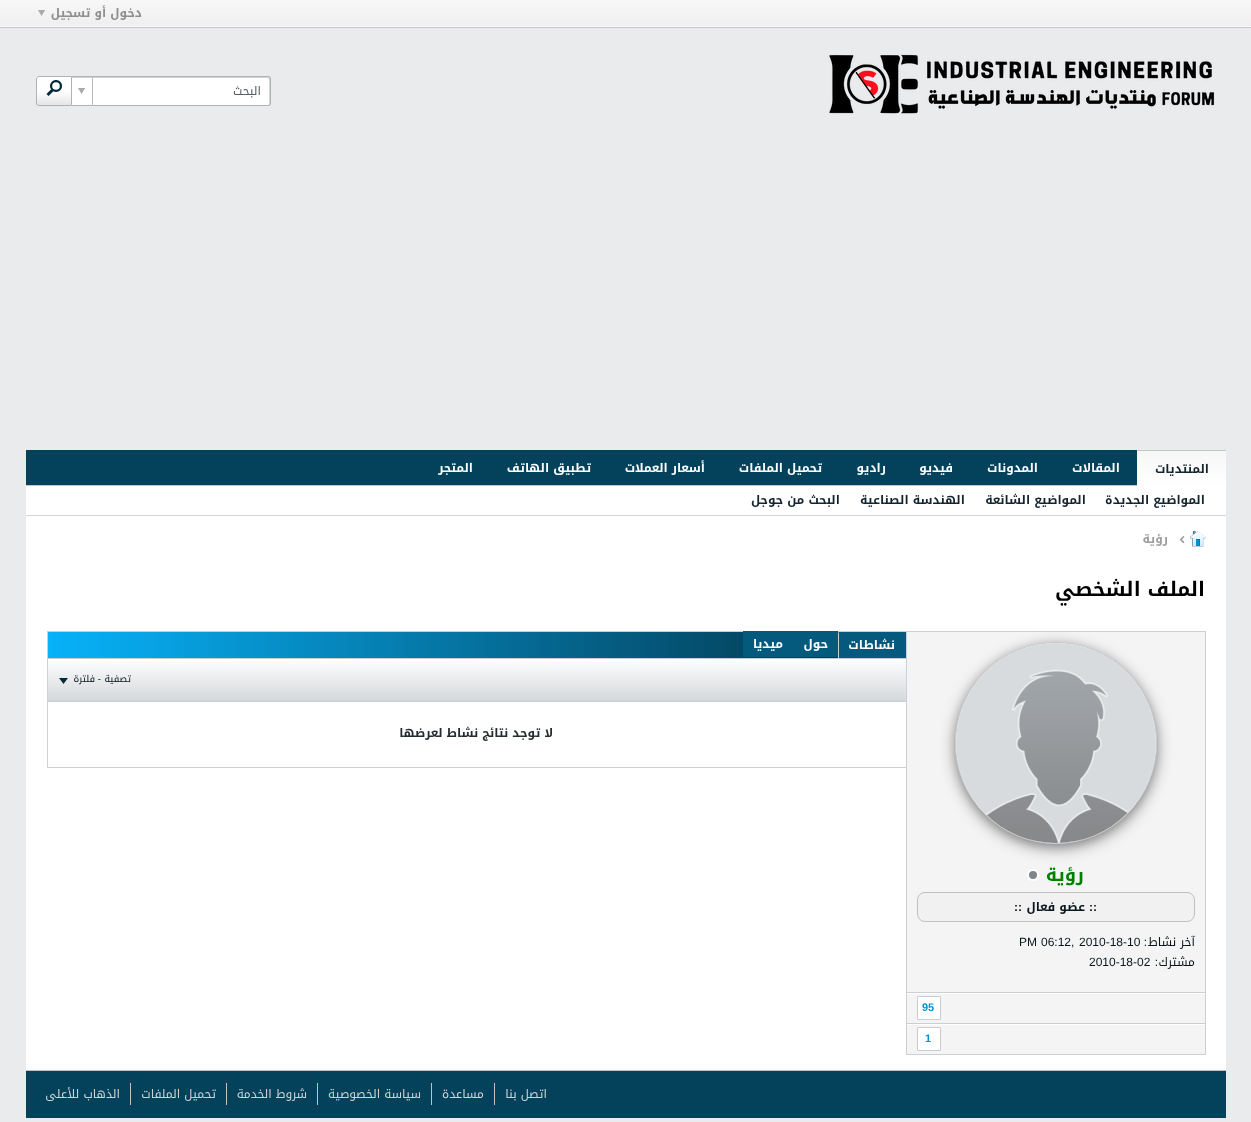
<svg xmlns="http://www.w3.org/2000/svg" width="1251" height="1122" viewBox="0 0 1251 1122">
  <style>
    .t1 { font: bold 12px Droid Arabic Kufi; direction: rtl; fill: #8e8e8e; }
    .t2 { font: 12px Droid Arabic Kufi; direction: rtl; fill: #556065; }
    .t3 { font: bold 12px Droid Arabic Kufi; direction: rtl; fill: #13242f; }
    .t4 { font: bold 12px Droid Arabic Kufi; direction: rtl; fill: #fff; }
    .t5 { font: bold 12px Droid Arabic Kufi; direction: rtl; fill: #9e9d9d; }
    .t6 { font: bold 20px Droid Arabic Kufi; direction: rtl; fill: #000; }
    .t7 { font: 9.5px Droid Arabic Kufi; direction: rtl; fill: #09161b; }
    .t8 { font: 9.5px Liberation Sans; direction: rtl; fill: #09161b; }
    .t9 { font: bold 12px Droid Arabic Kufi; direction: rtl; fill: #252c2f; }
    .t10 { font: bold 18px Droid Arabic Kufi; direction: rtl; fill: #008000; }
    .t11 { font: bold 12px Liberation Sans; direction: rtl; fill: #09161b; }
    .t12 { font: bold 12px Droid Arabic Kufi; direction: rtl; fill: #09161b; }
    .t13 { font: 12px Droid Arabic Kufi; direction: rtl; fill: #09161b; }
    .t14 { font: 12px Liberation Sans; direction: rtl; fill: #09161b; }
    .t15 { font: 12px Liberation Sans; fill: #09161b; }
    .t16 { font: bold 11px Liberation Sans; fill: #0093d2; }
    .t17 { font: 12px Droid Arabic Kufi; direction: rtl; fill: #d2d2d2; }
  </style>
  <defs>
    <linearGradient id="g1" gradientUnits="userSpaceOnUse" x1="626" y1="0" x2="626" y2="28"><stop offset="0" stop-color="#f8f8f8"/><stop offset="1" stop-color="#efedee"/></linearGradient>
    <linearGradient id="g2" gradientUnits="userSpaceOnUse" x1="54" y1="105" x2="54" y2="77"><stop offset="0" stop-color="#000" stop-opacity="0.1"/><stop offset="0.5" stop-color="#000" stop-opacity="0"/><stop offset="0.5" stop-color="#fff" stop-opacity="0"/><stop offset="1" stop-color="#fff" stop-opacity="0.7"/></linearGradient>
    <linearGradient id="g3" gradientUnits="userSpaceOnUse" x1="1182" y1="416" x2="1182" y2="451"><stop offset="0" stop-color="#f7f7f7"/><stop offset="1" stop-color="#fff"/></linearGradient>
    <linearGradient id="g4" gradientUnits="userSpaceOnUse" x1="1182" y1="451" x2="1182" y2="486"><stop offset="0" stop-color="#f7f7f7"/><stop offset="1" stop-color="#fff"/></linearGradient>
    <linearGradient id="g5" gradientUnits="userSpaceOnUse" x1="906" y1="645" x2="48" y2="645"><stop offset="0" stop-color="#033043"/><stop offset="1" stop-color="#07b2f9"/></linearGradient>
    <linearGradient id="g6" gradientUnits="userSpaceOnUse" x1="477" y1="659" x2="477" y2="701"><stop offset="0" stop-color="#fefeff"/><stop offset="1" stop-color="#d5d8da"/></linearGradient>
  </defs>
  <rect width="100%" height="100%" fill="#eaebec"/>
  <rect x="0" y="0" width="1251" height="26" fill="url(#g1)"/>
  <text x="142" y="17" class="t1">دخول أو تسجيل</text>
  <image x="38" y="10" width="7" height="6" href="images/1.png"/>
  <rect x="0" y="26" width="1251" height="1" fill="#fafafa"/>
  <rect x="0" y="27" width="1251" height="1" fill="#c7c8c9"/>
  <image x="829" y="54" width="386" height="60" href="images/2.png"/>
  <path d="M72 76H268C269.5 76 271 77.5 271 79V103C271 104.5 269.5 106 268 106H72Z" fill="#fff"/>
  <path d="M72 77V78H267C268 78 269 79 269 80V105C269 105 270 104 270 103V79C270 78 269 77 268 77Z" fill="#d5d5d5"/>
  <path d="M72 76H268C270 76 271 77 271 79V103C271 105 270 106 268 106H72ZM72 77H268C269 77 270 78 270 79V103C270 104 269 105 268 105H72Z" fill="#aeb3b6" fill-rule="evenodd"/>
  <text x="261" y="95" class="t2">البحث</text>
  <rect x="92" y="76" width="1" height="30" fill="#bdbdbd"/>
  <image x="78" y="88" width="7" height="6" href="images/3.png"/>
  <path d="M39 76H72V106H39C37.5 106 36 104.5 36 103V79C36 77.5 37.5 76 39 76Z" fill="#fff"/>
  <rect x="36" y="77" width="35" height="28" fill="url(#g2)"/>
  <path d="M39 76.5H71.5V105.5H39C37.5 105.5 36.5 104.5 36.5 103V79C36.5 77.5 37.5 76.5 39 76.5Z" fill="none" stroke="#aeb3b6"/>
  <image x="46" y="80" width="16" height="16" href="images/4.png"/>
  <rect x="26" y="450" width="1112" height="35" fill="#04425c"/>
  <rect x="26" y="485" width="1111" height="1" fill="#c4c7c8"/>
  <path d="M1138 450H1225C1225.5 450 1226 450.5 1226 451H1137C1137 450.5 1137.5 450 1138 450Z" fill="url(#g3)"/>
  <rect x="1137" y="451" width="89" height="35" fill="url(#g4)"/>
  <rect x="1138" y="450" width="88" height="1" fill="#c4c7c8"/>
  <text x="1209" y="473" class="t3">المنتديات</text>
  <text x="1120" y="472" class="t4">المقالات</text>
  <text x="1038" y="472" class="t4">المدونات</text>
  <text x="953" y="472" class="t4">فيديو</text>
  <text x="886" y="472" class="t4">راديو</text>
  <text x="822" y="472" class="t4">تحميل الملفات</text>
  <text x="705" y="472" class="t4">أسعار العملات</text>
  <text x="591" y="472" class="t4">تطبيق الهاتف</text>
  <text x="473" y="472" class="t4">المتجر</text>
  <rect x="26" y="486" width="1200" height="29" fill="#fff"/>
  <rect x="26" y="515" width="1200" height="1" fill="#d3d5d6"/>
  <text x="1205" y="504" class="t3">المواضيع الجديدة</text>
  <text x="1086" y="504" class="t3">المواضيع الشائعة</text>
  <text x="965" y="504" class="t3">الهندسة الصناعية</text>
  <text x="840" y="504" class="t3">البحث من جوجل</text>
  <rect x="26" y="516" width="1200" height="554" fill="#fff"/>
  <image x="1190" y="531" width="16" height="16" href="images/5.png"/>
  <image x="1180" y="536" width="5" height="7" href="images/6.png"/>
  <text x="1168" y="543" class="t5">رؤية</text>
  <text x="1205" y="596" class="t6">الملف الشخصي</text>
  <rect x="906.5" y="631.5" width="299" height="423" fill="none" stroke="#ccd1d5"/>
  <rect x="47.5" y="631.5" width="859" height="136" fill="none" stroke="#ccd1d5"/>
  <rect x="48" y="632" width="791" height="26" fill="url(#g5)"/>
  <rect x="47" y="631" width="860" height="1" fill="#c9ced2"/>
  <rect x="906" y="631" width="1" height="3" fill="#c9ced2"/>
  <rect x="47" y="631" width="1" height="27" fill="#c9ced2"/>
  <path d="M841 631H904C906 631 907 632 907 634V658H838V634C838 632 839 631 841 631ZM841 632H904C905 632 906 633 906 634V658H839V634C839 633 840 632 841 632Z" fill="#c9ced2" fill-rule="evenodd"/>
  <rect x="839" y="632" width="67" height="26" fill="#04597c"/>
  <text x="895" y="649" class="t4">نشاطات</text>
  <rect x="743" y="631" width="95" height="26" fill="#045a7d"/>
  <text x="828" y="648" class="t4">حول</text>
  <text x="783" y="648" class="t4">ميديا</text>
  <rect x="48" y="661" width="858" height="40" fill="url(#g6)"/>
  <rect x="48" y="658" width="858" height="1" fill="#c9ced2"/>
  <rect x="48" y="701" width="858" height="1" fill="#c9ced2"/>
  <text x="131" y="682" class="t7">تصفية</text>
  <text x="101" y="682" class="t8">-</text>
  <text x="95" y="682" class="t7">فلترة</text>
  <image x="59" y="678" width="9" height="6" href="images/7.png"/>
  <text x="553" y="737" class="t9">لا توجد نتائج نشاط لعرضها</text>
  <rect x="907" y="632" width="298" height="422" fill="#f4f4f4"/>
  <image x="1027" y="869" width="12" height="12" href="images/9.png"/>
  <rect x="955" y="646" width="202" height="202" rx="101" fill="#0000005c" filter="blur(8px)"/>
  <rect x="955" y="645" width="202" height="202" rx="101" fill="#0000002e" filter="blur(4px)"/>
  <circle cx="1056" cy="743" r="100.5" fill="#fff" stroke="#c8ccce"/>
  <image x="956" y="643" width="200" height="200" href="images/8.png"/>
  <text x="1084" y="881" class="t10">رؤية</text>
  <rect x="917.5" y="892.5" width="277" height="29" rx="7.5" fill="#f1f1f1" stroke="#c0c0c0"/>
  <text x="1097" y="911" class="t11">::</text>
  <text x="1085" y="911" class="t12">عضو فعال</text>
  <text x="1022" y="911" class="t11">::</text>
  <text x="1195" y="946" class="t13">آخر نشاط</text>
  <text x="1147" y="946" class="t14">:</text>
  <text x="1079" y="946" class="t15">2010-18-10</text>
  <text x="1041" y="946" class="t15">06:12,</text>
  <text x="1019" y="946" class="t15">PM</text>
  <text x="1195" y="966" class="t13">مشترك</text>
  <text x="1158" y="966" class="t14">:</text>
  <text x="1089" y="966" class="t15">2010-18-02</text>
  <rect x="907" y="992" width="298" height="1" fill="#cacfd3"/>
  <rect x="907" y="993" width="298" height="1" fill="#fff"/>
  <rect x="907" y="1023" width="298" height="1" fill="#cacfd3"/>
  <rect x="917.5" y="996.5" width="23" height="23" rx="0.5" fill="#fff" stroke="#c8ccce"/>
  <text x="922" y="1011" class="t16">95</text>
  <rect x="907" y="1024" width="298" height="1" fill="#fff"/>
  <rect x="917.5" y="1027.5" width="23" height="23" rx="0.5" fill="#fff" stroke="#c8ccce"/>
  <text x="925" y="1042" class="t16">1</text>
  <rect x="26" y="1071" width="1200" height="47" fill="#04425c"/>
  <rect x="26" y="1070" width="1200" height="1" fill="#c2c2c2"/>
  <text x="547" y="1098" class="t17">اتصل بنا</text>
  <text x="484" y="1098" class="t17">مساعدة</text>
  <rect x="494" y="1083" width="1" height="22" fill="#c2c2c2"/>
  <text x="421" y="1098" class="t17">سياسة الخصوصية</text>
  <rect x="431" y="1083" width="1" height="22" fill="#c2c2c2"/>
  <text x="307" y="1098" class="t17">شروط الخدمة</text>
  <rect x="317" y="1083" width="1" height="22" fill="#c2c2c2"/>
  <text x="216" y="1098" class="t17">تحميل الملفات</text>
  <rect x="226" y="1083" width="1" height="22" fill="#c2c2c2"/>
  <text x="120" y="1098" class="t17">الذهاب للأعلى</text>
  <rect x="130" y="1083" width="1" height="22" fill="#c2c2c2"/>
</svg>
